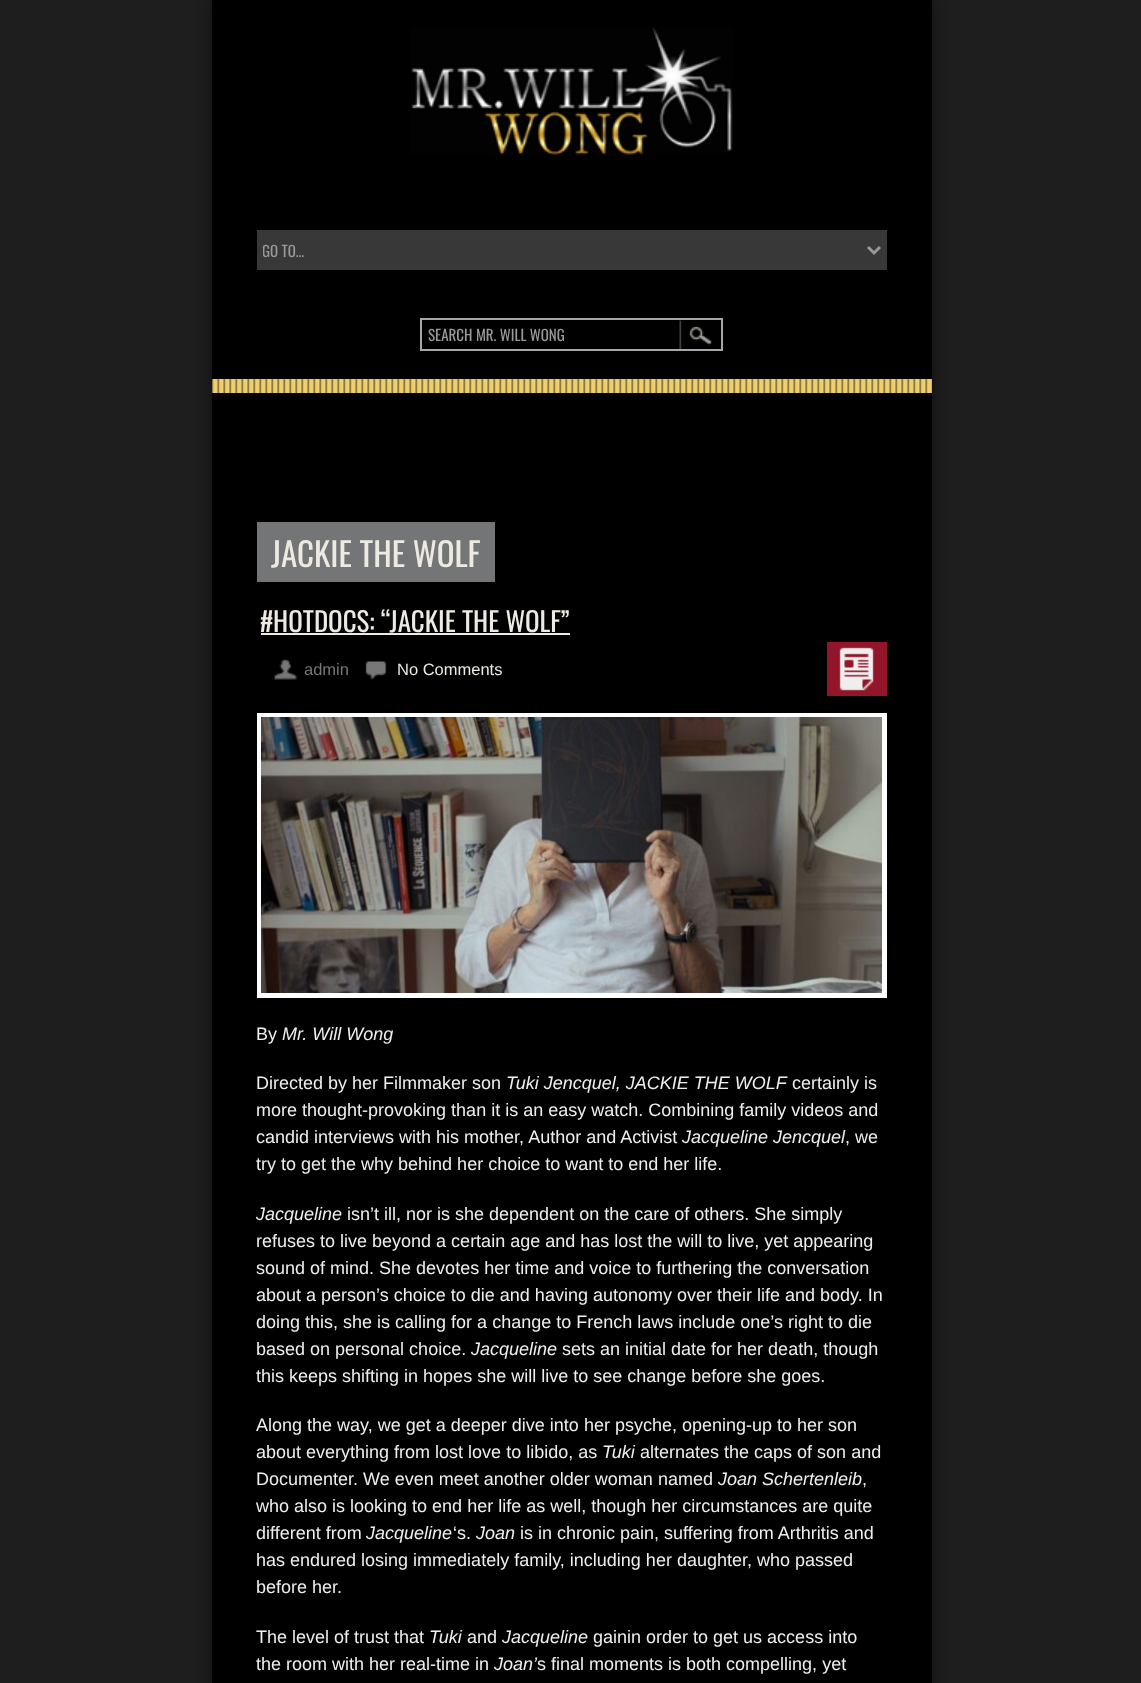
<svg xmlns="http://www.w3.org/2000/svg" width="1141" height="1683" viewBox="0 0 1141 1683">
  <style>
    .t1 { font: 15px Oswald; fill: #999; }
    .t2 { font: 33px Oswald; fill: #edeae2; }
    .t3 { font: 27px Oswald; fill: #edeae2; }
    .t4 { font: 16.5px Liberation Sans; fill: #777; }
    .t5 { font: 16.5px Liberation Sans; fill: #edeae2; }
    .t6 { font: 18px Liberation Sans; fill: #eee; }
    .t7 { font: italic 18px Liberation Sans; fill: #eee; }
  </style>
  <defs>
    <clipPath id="clip1"><rect x="263" y="237" width="600" height="26"/></clipPath>
  </defs>
  <rect width="100%" height="100%" fill="#1e1e1e"/>
  <rect x="212" y="0" width="720" height="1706" fill="#00000080" filter="blur(7.5px)"/>
  <rect x="212" y="0" width="720" height="1683" fill="#000"/>
  <image x="411" y="27" width="322" height="128" href="images/1.png"/>
  <rect x="257" y="230" width="630" height="40" fill="#383838"/>
  <path d="M868 247L874 253L880 247" fill="none" stroke="#999" stroke-width="3"/>
  <g clip-path="url(#clip1)">
    <text x="262" y="257" class="t1">GO TO...</text>
  </g>
  <image x="679" y="320" width="33" height="29" href="images/2.png"/>
  <rect x="421" y="319" width="301" height="31" fill="none" stroke="#a8a6a7" stroke-width="2"/>
  <text x="428" y="341" class="t1">SEARCH MR. WILL WONG</text>
  <rect x="212" y="379" width="720" height="14" fill="#efce70"/>
  <image x="212" y="379" width="720" height="14" href="images/3.png"/>
  <rect x="257" y="522" width="238" height="60" fill="#747576"/>
  <text x="271" y="567" class="t2">JACKIE THE WOLF</text>
  <text x="260" y="632" class="t3">#HOTDOCS: “JACKIE THE WOLF”</text>
  <rect x="261" y="633" width="309" height="2" fill="#edeae2"/>
  <image x="274" y="659" width="24" height="21" href="images/4.png"/>
  <text x="304" y="675" class="t4">admin</text>
  <image x="365" y="661" width="22" height="19" href="images/5.png"/>
  <text x="397" y="675" class="t5">No Comments</text>
  <rect x="827" y="642" width="60" height="54" fill="#921529"/>
  <image x="839" y="647" width="35" height="44" href="images/6.png"/>
  <rect x="259.5" y="715.5" width="625" height="280" fill="none" stroke="#fff" stroke-width="5"/>
  <image x="261" y="717" width="621" height="276" href="images/7.png"/>
  <text x="256" y="1040" class="t6">By</text>
  <text x="282" y="1040" class="t7">Mr. Will Wong</text>
  <text x="256" y="1089" class="t6">Directed by her Filmmaker son</text>
  <text x="506" y="1089" class="t7">Tuki Jencquel, JACKIE THE WOLF</text>
  <text x="792" y="1089" class="t6">certainly is</text>
  <text x="256" y="1116" class="t6">more thought-provoking than it is an easy watch. Combining family videos and</text>
  <text x="256" y="1143" class="t6">candid interviews with his mother, Author and Activist</text>
  <text x="682" y="1143" class="t7">Jacqueline Jencquel</text>
  <text x="845" y="1143" class="t6">, we</text>
  <text x="256" y="1170" class="t6">try to get the why behind her choice to want to end her life.</text>
  <text x="256" y="1220" class="t7">Jacqueline</text>
  <text x="347" y="1220" class="t6">isn’t ill, nor is she dependent on the care of others. She simply</text>
  <text x="256" y="1247" class="t6">refuses to live beyond a certain age and has lost the will to live, yet appearing</text>
  <text x="256" y="1274" class="t6">sound of mind. She devotes her time and voice to furthering the conversation</text>
  <text x="256" y="1301" class="t6">about a person’s choice to die and having autonomy over their life and body. In</text>
  <text x="256" y="1328" class="t6">doing this, she is calling for a change to French laws include one’s right to die</text>
  <text x="256" y="1355" class="t6">based on personal choice.</text>
  <text x="471" y="1355" class="t7">Jacqueline</text>
  <text x="562" y="1355" class="t6">sets an initial date for her death, though</text>
  <text x="256" y="1382" class="t6">this keeps shifting in hopes she will live to see change before she goes.</text>
  <text x="256" y="1431" class="t6">Along the way, we get a deeper dive into her psyche, opening-up to her son</text>
  <text x="256" y="1458" class="t6">about everything from lost love to libido, as</text>
  <text x="602" y="1458" class="t7">Tuki</text>
  <text x="640" y="1458" class="t6">alternates the caps of son and</text>
  <text x="256" y="1485" class="t6">Documenter. We even meet another older woman named</text>
  <text x="718" y="1485" class="t7">Joan Schertenleib</text>
  <text x="862" y="1485" class="t6">,</text>
  <text x="256" y="1512" class="t6">who also is looking to end her life as well, though her circumstances are quite</text>
  <text x="256" y="1539" class="t6">different from</text>
  <text x="366" y="1539" class="t7">Jacqueline</text>
  <text x="453" y="1539" class="t6">‘s.</text>
  <text x="476" y="1539" class="t7">Joan</text>
  <text x="520" y="1539" class="t6">is in chronic pain, suffering from Arthritis and</text>
  <text x="256" y="1566" class="t6">has endured losing immediately family, including her daughter, who passed</text>
  <text x="256" y="1593" class="t6">before her.</text>
  <text x="256" y="1643" class="t6">The level of trust that</text>
  <text x="429" y="1643" class="t7">Tuki</text>
  <text x="467" y="1643" class="t6">and</text>
  <text x="502" y="1643" class="t7">Jacqueline</text>
  <text x="593" y="1643" class="t6">gainin order to get us access into</text>
  <text x="256" y="1670" class="t6">the room with her real-time in</text>
  <text x="494" y="1670" class="t7">Joan’</text>
  <text x="537" y="1670" class="t6">s final moments is both compelling, yet</text>
</svg>
